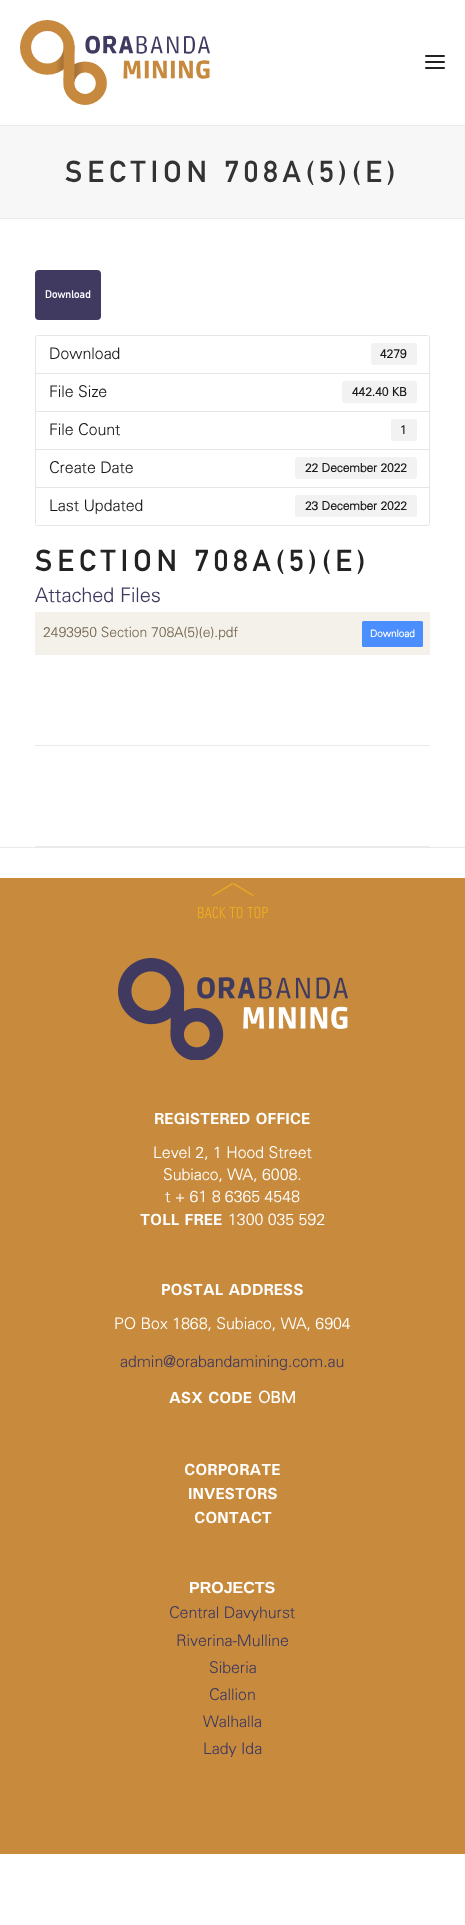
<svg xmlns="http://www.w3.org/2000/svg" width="465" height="1925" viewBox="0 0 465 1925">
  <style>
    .t1 { font: bold 30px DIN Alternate; letter-spacing: 5px; fill: #333; }
    .t2 { font: bold 11px DIN Alternate; fill: #fff; }
    .t3 { font: 300 16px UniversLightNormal; fill: #191919; }
    .t4 { font: bold 12px UniversLightNormal; fill: #191919; }
    .t5 { font: bold 30px DIN Alternate; letter-spacing: 5px; fill: #222; }
    .t6 { font: 300 20px UniversLightNormal; fill: #403a60; }
    .t7 { font: 300 14px UniversLightNormal; fill: #756852; }
    .t8 { font: bold 10px UniversLightNormal; fill: #fff; }
    .t9 { font: 300 16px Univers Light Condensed; fill: #f2b01d; }
    .t10 { font: bold 16px Univers; fill: #fff; }
    .t11 { font: 300 16px UniversLightNormal; fill: #fff; }
    .t12 { font: 300 16px UniversLightNormal; fill: #403a60; }
    .t13 { font: bold 16px UniversLightNormal; fill: #fff; }
    .t14 { font: bold 16px Liberation Sans; fill: #fff; }
  </style>
  <rect width="100%" height="100%" fill="#fff"/>
  <rect x="0" y="125" width="465" height="1" fill="#eaeaea"/>
  <image x="20" y="20" width="190" height="85" href="images/1.png"/>
  <rect x="425" y="61" width="20" height="2" rx="1" fill="#222"/>
  <rect x="425" y="55" width="20" height="2" rx="1" fill="#222"/>
  <rect x="425" y="67" width="20" height="2" rx="1" fill="#222"/>
  <rect x="0" y="126" width="465" height="92" fill="#f7f7f7"/>
  <rect x="0" y="218" width="465" height="1" fill="#eaeaea"/>
  <text x="65" y="182" class="t1">SECTION 708A(5)(E)</text>
  <rect x="35" y="270" width="66" height="50" rx="4" fill="#403a60"/>
  <text x="45" y="298" class="t2">Download</text>
  <path d="M37.5 335.5H427.5C428.5 335.5 429.5 336.5 429.5 337.5V373.5H35.5V337.5C35.5 336.5 36.5 335.5 37.5 335.5Z" fill="none" stroke="#e5e5e5"/>
  <text x="49" y="359" class="t3">Download</text>
  <rect x="371" y="343" width="46" height="22" rx="3" fill="#f2f2f2"/>
  <text x="380" y="358" class="t4">4279</text>
  <rect x="35.5" y="373.5" width="394" height="38" fill="none" stroke="#e5e5e5"/>
  <text x="49" y="397" class="t3">File Size</text>
  <rect x="342" y="381" width="75" height="22" rx="3" fill="#f2f2f2"/>
  <text x="352" y="396" class="t4">442.40 KB</text>
  <rect x="35.5" y="411.5" width="394" height="38" fill="none" stroke="#e5e5e5"/>
  <text x="49" y="435" class="t3">File Count</text>
  <rect x="391" y="419" width="26" height="22" rx="3" fill="#f2f2f2"/>
  <text x="400" y="434" class="t4">1</text>
  <rect x="35.5" y="449.5" width="394" height="38" fill="none" stroke="#e5e5e5"/>
  <text x="49" y="473" class="t3">Create Date</text>
  <rect x="295" y="457" width="122" height="22" rx="3" fill="#f2f2f2"/>
  <text x="305" y="472" class="t4">22 December 2022</text>
  <path d="M35.5 487.5H429.5V523.5C429.5 524.5 428.5 525.5 427.5 525.5H37.5C36.5 525.5 35.5 524.5 35.5 523.5Z" fill="#fff" stroke="#e5e5e5"/>
  <text x="49" y="511" class="t3">Last Updated</text>
  <rect x="295" y="495" width="122" height="22" rx="3" fill="#f2f2f2"/>
  <text x="305" y="510" class="t4">23 December 2022</text>
  <text x="35" y="571" class="t5">SECTION 708A(5)(E)</text>
  <text x="35" y="602" class="t6">Attached Files</text>
  <rect x="35" y="612" width="395" height="43" fill="#f3f1ea"/>
  <text x="43" y="637" class="t7">2493950 Section 708A(5)(e).pdf</text>
  <rect x="362" y="621" width="61" height="26" rx="1.5" fill="#4a8eff"/>
  <text x="370" y="637" class="t8">Download</text>
  <rect x="35" y="745" width="395" height="1" fill="#eaeaea"/>
  <rect x="35" y="846" width="395" height="1" fill="#eaeaea"/>
  <rect x="0" y="847" width="465" height="1" fill="#eaeaea"/>
  <rect x="0" y="878" width="465" height="976" fill="#c88b3d"/>
  <image x="212" y="883" width="42" height="13" href="images/2.png"/>
  <text x="197" y="918" class="t9">BACK TO TOP</text>
  <image x="118" y="958" width="230" height="102" href="images/3.png"/>
  <text x="154" y="1124" class="t10">REGISTERED OFFICE</text>
  <text x="153" y="1158" class="t11">Level 2, 1 Hood Street</text>
  <text x="163" y="1180" class="t11">Subiaco, WA, 6008.</text>
  <text x="165" y="1202" class="t11">t + 61 8 6365 4548</text>
  <text x="140" y="1225" class="t10">TOLL FREE</text>
  <text x="228" y="1225" class="t11">1300 035 592</text>
  <text x="161" y="1295" class="t10">POSTAL ADDRESS</text>
  <text x="114" y="1329" class="t11">PO Box 1868, Subiaco, WA, 6904</text>
  <text x="120" y="1367" class="t12">admin@orabandamining.com.au</text>
  <text x="169" y="1403" class="t10">ASX CODE</text>
  <text x="258" y="1403" class="t13">OBM</text>
  <text x="184" y="1475" class="t10">CORPORATE</text>
  <text x="188" y="1499" class="t10">INVESTORS</text>
  <text x="194" y="1523" class="t10">CONTACT</text>
  <text x="189" y="1593" class="t14">PROJECTS</text>
  <text x="169" y="1618" class="t12">Central Davyhurst</text>
  <text x="176" y="1646" class="t12">Riverina-Mulline</text>
  <text x="209" y="1673" class="t12">Siberia</text>
  <text x="209" y="1700" class="t12">Callion</text>
  <text x="203" y="1727" class="t12">Walhalla</text>
  <text x="203" y="1754" class="t12">Lady Ida</text>
</svg>
